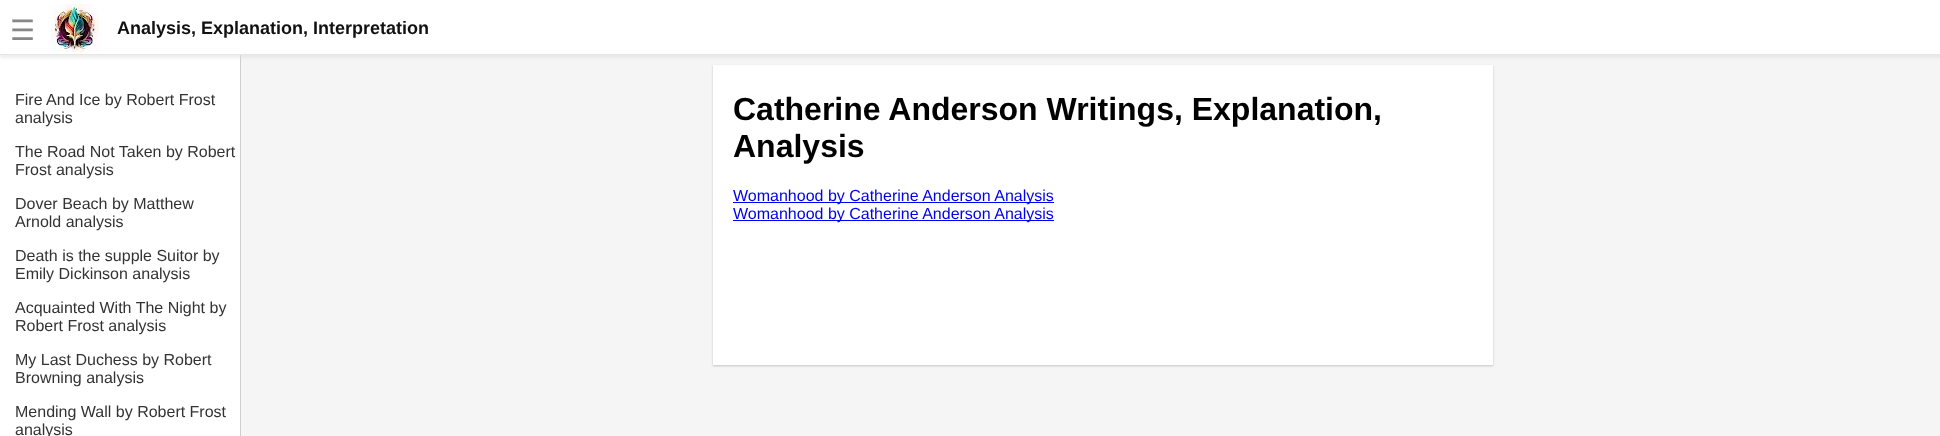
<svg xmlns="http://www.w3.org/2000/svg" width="1940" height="436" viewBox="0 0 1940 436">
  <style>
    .t1 { font: 28px DejaVu Sans; fill: #888; }
    .t2 { font: bold 18px Liberation Sans; fill: #111; }
    .t3 { font: 16px Liberation Sans; fill: #333; }
    .t4 { font: bold 32px Liberation Sans; fill: #000; }
    .t5 { font: 16px Liberation Sans; fill: #00e; }
  </style>
  <rect width="100%" height="100%" fill="#f5f5f5"/>
  <rect x="0" y="55" width="240" height="381" fill="#fff"/>
  <rect x="240" y="55" width="1" height="381" fill="#cfcfcf"/>
  <rect x="0" y="3" width="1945" height="55" fill="#dcdcdc80" filter="blur(1.5px)"/>
  <rect x="0" y="0" width="1940" height="54" fill="#fff"/>
  <rect x="0" y="54" width="1940" height="1" fill="#e6e6e6"/>
  <text x="10" y="40" class="t1">☰</text>
  <image x="51" y="4" width="48" height="48" href="images/1.png"/>
  <text x="117" y="34" class="t2">Analysis, Explanation, Interpretation</text>
  <text x="15" y="105" class="t3">Fire And Ice by Robert Frost</text>
  <text x="15" y="123" class="t3">analysis</text>
  <text x="15" y="157" class="t3">The Road Not Taken by Robert</text>
  <text x="15" y="175" class="t3">Frost analysis</text>
  <text x="15" y="209" class="t3">Dover Beach by Matthew</text>
  <text x="15" y="227" class="t3">Arnold analysis</text>
  <text x="15" y="261" class="t3">Death is the supple Suitor by</text>
  <text x="15" y="279" class="t3">Emily Dickinson analysis</text>
  <text x="15" y="313" class="t3">Acquainted With The Night by</text>
  <text x="15" y="331" class="t3">Robert Frost analysis</text>
  <text x="15" y="365" class="t3">My Last Duchess by Robert</text>
  <text x="15" y="383" class="t3">Browning analysis</text>
  <text x="15" y="417" class="t3">Mending Wall by Robert Frost</text>
  <text x="15" y="435" class="t3">analysis</text>
  <rect x="713" y="66" width="780" height="300" fill="#00000033" filter="blur(1px)"/>
  <rect x="713" y="65" width="780" height="300" fill="#fff"/>
  <text x="733" y="120" class="t4">Catherine Anderson Writings, Explanation,</text>
  <text x="733" y="157" class="t4">Analysis</text>
  <rect x="733" y="202" width="321" height="1" fill="#00e"/>
  <text x="733" y="201" class="t5">Womanhood by Catherine Anderson Analysis</text>
  <rect x="733" y="220" width="321" height="1" fill="#00e"/>
  <text x="733" y="219" class="t5">Womanhood by Catherine Anderson Analysis</text>
</svg>
